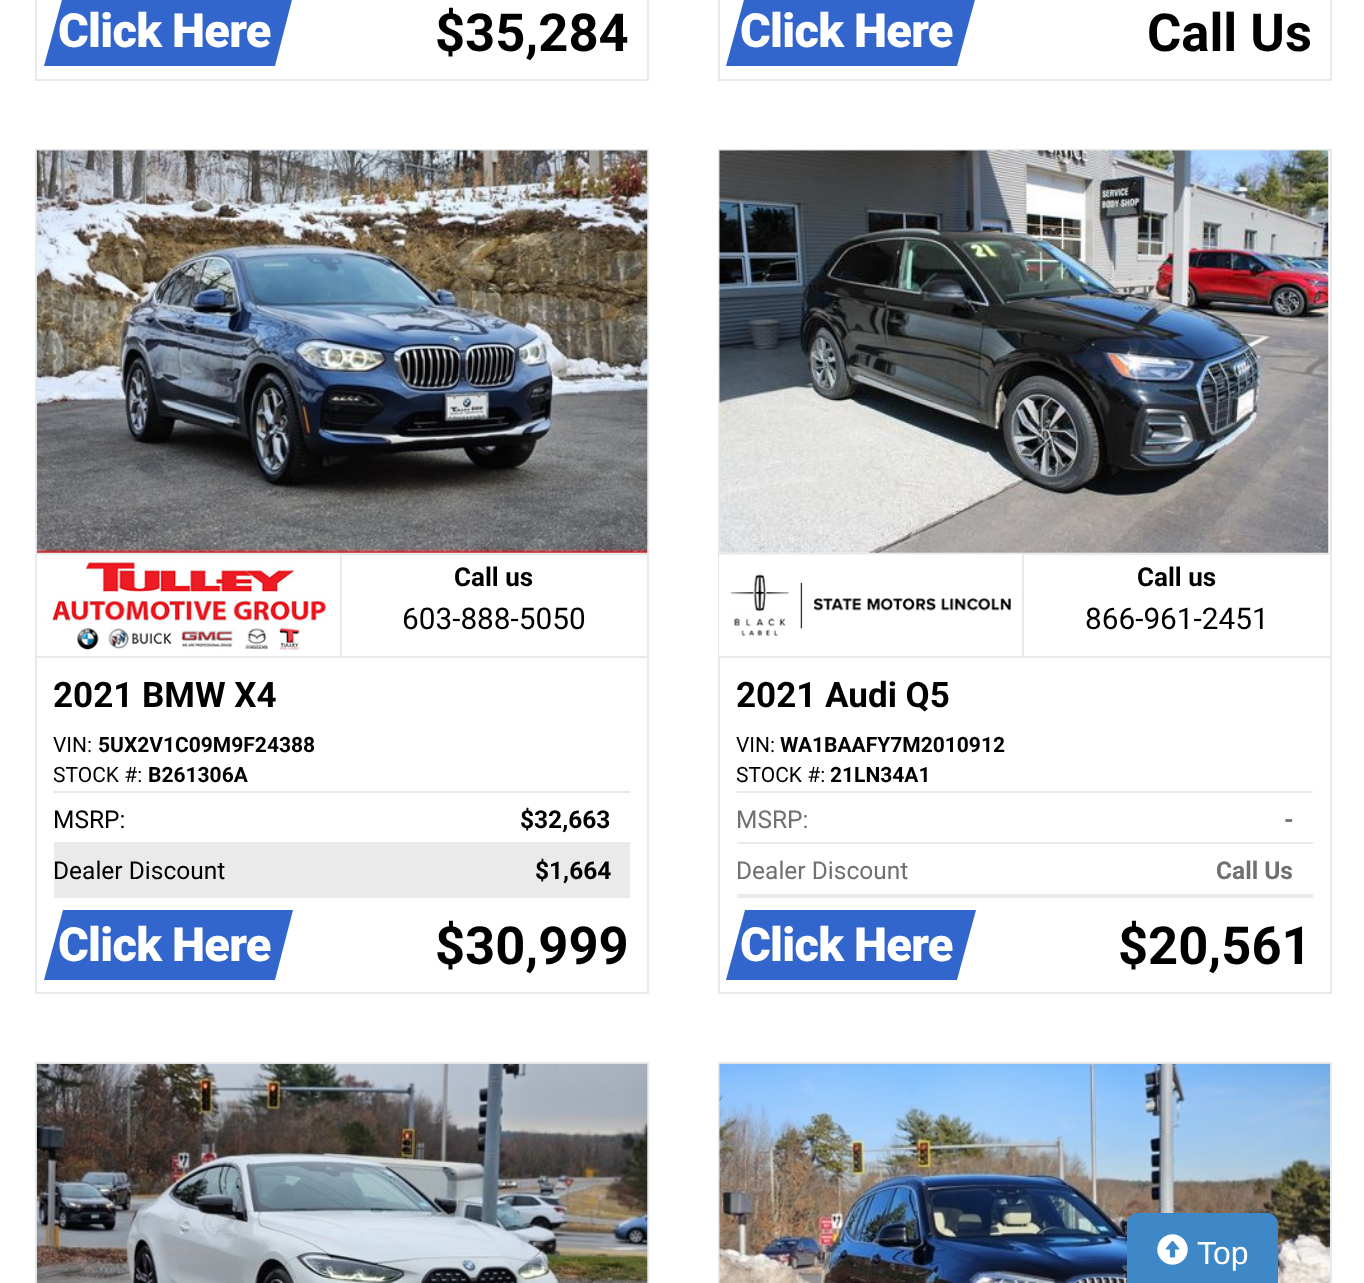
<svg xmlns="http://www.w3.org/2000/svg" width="1364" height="1283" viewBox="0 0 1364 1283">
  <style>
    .t1 { font: 900 47px Roboto; letter-spacing: -0.75px; fill: #fff; }
    .t2 { font: bold 52.5px Roboto; fill: #000; }
    .t3 { font: bold 26px Roboto; fill: #000; }
    .t4 { font: 29.75px Roboto; fill: #000; }
    .t5 { font: bold 35px Roboto; fill: #000; }
    .t6 { font: 21px Roboto; fill: #000; }
    .t7 { font: bold 21px Roboto; fill: #000; }
    .t8 { font: 24.5px Roboto; fill: #000; }
    .t9 { font: bold 24.5px Roboto; fill: #000; }
    .t10 { font: 24.5px Roboto; fill: #707070; }
    .t11 { font: bold 24.5px Roboto; fill: #707070; }
    .t12 { font: 32px Liberation Sans; fill: #fff; }
  </style>
  <rect width="100%" height="100%" fill="#fff"/>
  <rect x="36" y="-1" width="612" height="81" fill="none" stroke="#e6eaea" stroke-width="2"/>
  <path d="M63-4H293L275 66H44Z" fill="#3266cc"/>
  <text x="58" y="47" class="t1">Click Here</text>
  <text x="435" y="51" class="t2">$35,284</text>
  <rect x="719" y="-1" width="612" height="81" fill="none" stroke="#e6eaea" stroke-width="2"/>
  <path d="M745-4H976L957 66H726Z" fill="#3266cc"/>
  <text x="740" y="47" class="t1">Click Here</text>
  <text x="1147" y="51" class="t2">Call Us</text>
  <rect x="36" y="150" width="612" height="843" fill="none" stroke="#e6eaea" stroke-width="2"/>
  <image x="36" y="150" width="612" height="403" href="images/1.png"/>
  <rect x="37" y="553" width="304" height="2" fill="#e6eaea"/>
  <rect x="340" y="553" width="2" height="105" fill="#e6eaea"/>
  <rect x="37" y="656" width="611" height="2" fill="#e6eaea"/>
  <image x="36" y="554" width="304" height="102" href="images/2.png"/>
  <rect x="341" y="553" width="307" height="2" fill="#e6eaea"/>
  <text x="454" y="586" class="t3">Call us</text>
  <text x="402" y="629" class="t4">603-888-5050</text>
  <text x="53" y="707" class="t5">2021 BMW X4</text>
  <text x="53" y="752" class="t6">VIN:</text>
  <text x="98" y="752" class="t7">5UX2V1C09M9F24388</text>
  <text x="53" y="782" class="t6">STOCK #:</text>
  <text x="148" y="782" class="t7">B261306A</text>
  <rect x="54" y="791" width="576" height="2" fill="#e6eaea"/>
  <rect x="54" y="842" width="576" height="2" fill="#e6eaea"/>
  <text x="53" y="828" class="t8">MSRP:</text>
  <text x="520" y="828" class="t9">$32,663</text>
  <rect x="54" y="844" width="576" height="50" fill="#eaeaea"/>
  <rect x="54" y="894" width="576" height="4" fill="#e6eaea"/>
  <text x="53" y="879" class="t8">Dealer Discount</text>
  <text x="535" y="879" class="t9">$1,664</text>
  <path d="M63 910H293L275 980H44Z" fill="#3266cc"/>
  <text x="58" y="961" class="t1">Click Here</text>
  <text x="435" y="964" class="t2">$30,999</text>
  <rect x="719" y="150" width="612" height="843" fill="none" stroke="#e6eaea" stroke-width="2"/>
  <image x="719" y="150" width="610" height="403" href="images/3.png"/>
  <rect x="719" y="553" width="611" height="2" fill="#e6eaea"/>
  <rect x="1022" y="553" width="2" height="105" fill="#e6eaea"/>
  <rect x="719" y="656" width="611" height="2" fill="#e6eaea"/>
  <image x="719" y="554" width="303" height="102" href="images/4.png"/>
  <text x="1137" y="586" class="t3">Call us</text>
  <text x="1085" y="629" class="t4">866-961-2451</text>
  <text x="736" y="707" class="t5">2021 Audi Q5</text>
  <text x="736" y="752" class="t6">VIN:</text>
  <text x="780" y="752" class="t7">WA1BAAFY7M2010912</text>
  <text x="736" y="782" class="t6">STOCK #:</text>
  <text x="830" y="782" class="t7">21LN34A1</text>
  <rect x="737" y="791" width="576" height="2" fill="#e6eaea"/>
  <rect x="737" y="842" width="576" height="2" fill="#e6eaea"/>
  <text x="736" y="828" class="t10">MSRP:</text>
  <text x="1284" y="828" class="t11">-</text>
  <rect x="737" y="894" width="576" height="4" fill="#e6eaea"/>
  <text x="736" y="879" class="t10">Dealer Discount</text>
  <text x="1216" y="879" class="t11">Call Us</text>
  <path d="M745 910H976L957 980H726Z" fill="#3266cc"/>
  <text x="740" y="961" class="t1">Click Here</text>
  <text x="1118" y="964" class="t2">$20,561</text>
  <rect x="36" y="1063" width="612" height="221" fill="none" stroke="#e6eaea" stroke-width="2"/>
  <image x="36" y="1063" width="612" height="220" href="images/5.png"/>
  <rect x="719" y="1063" width="612" height="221" fill="none" stroke="#e6eaea" stroke-width="2"/>
  <image x="719" y="1063" width="611" height="220" href="images/6.png"/>
  <rect x="1128" y="1214" width="149" height="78" rx="10" fill="#3f88c7" stroke="#3f88c7" stroke-width="2"/>
  <image x="1157" y="1234" width="31" height="31" href="images/7.png"/>
  <text x="1197" y="1264" class="t12">Top</text>
</svg>
